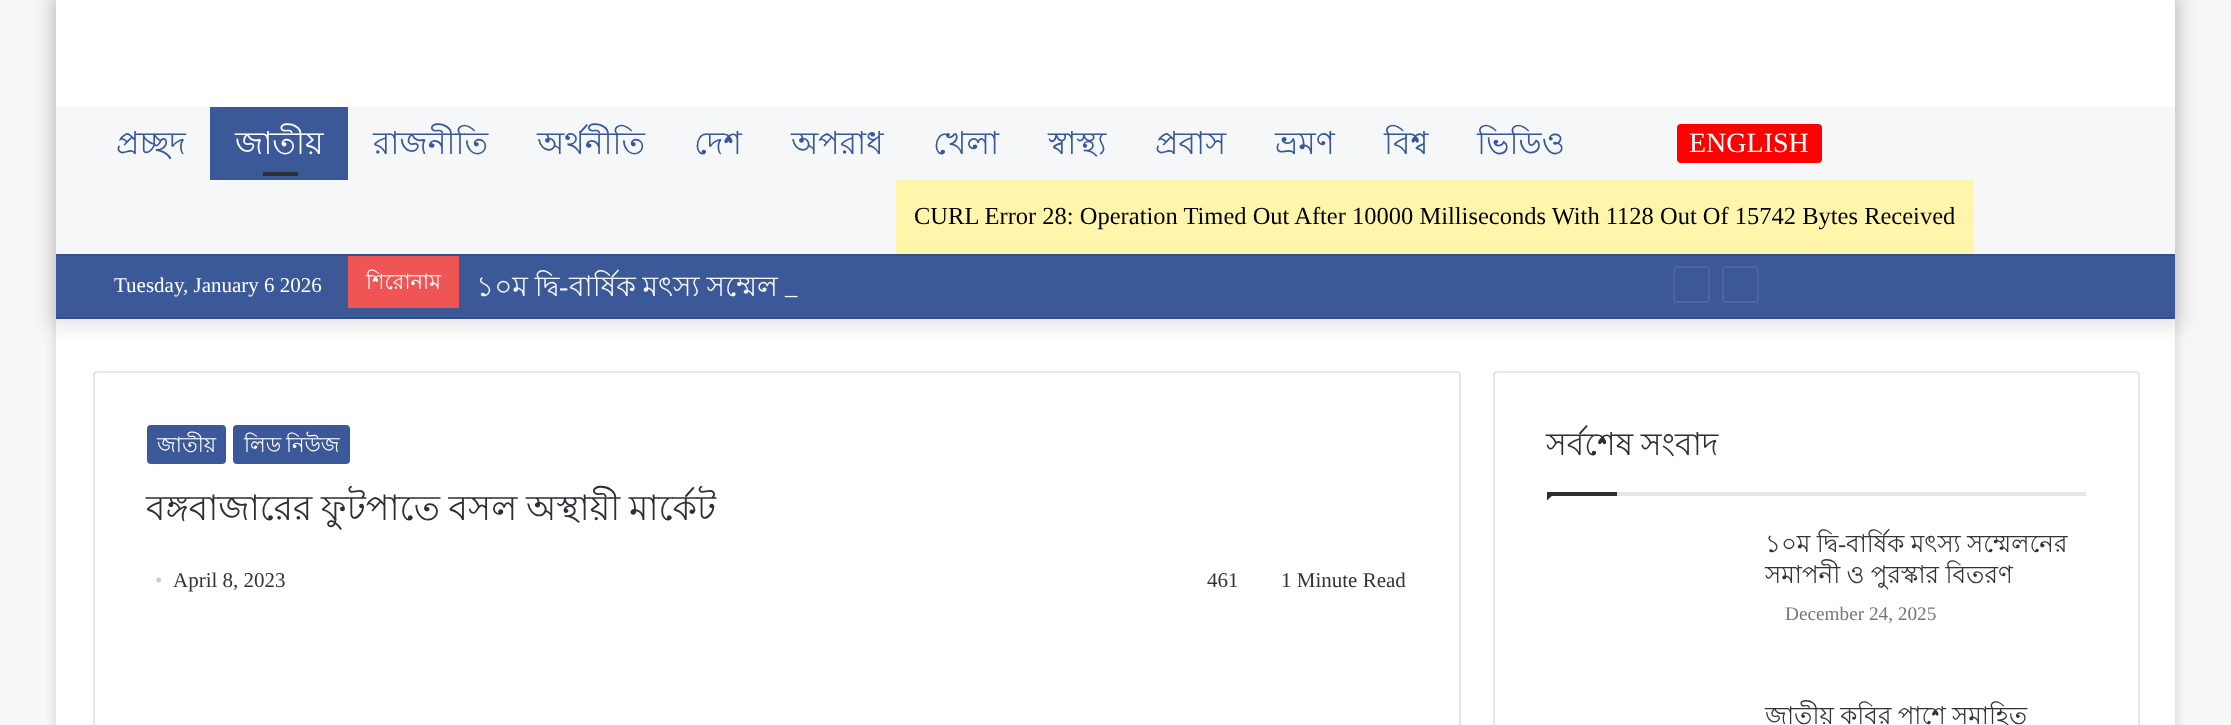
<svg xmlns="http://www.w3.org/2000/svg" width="2231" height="725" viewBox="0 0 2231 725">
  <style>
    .t1 { font: 31.5px Lohit Bengali; fill: #365899; }
    .t2 { font: 31.5px Lohit Bengali; fill: #fff; }
    .t3 { font: 28px Liberation Serif; fill: #fff; }
    .t4 { font: 24.5px Liberation Serif; fill: #000; }
    .t5 { font: 21px Liberation Serif; fill: #fff; }
    .t6 { font: 21px Lohit Bengali; fill: #fff; }
    .t7 { font: 28px Lohit Bengali; fill: #f6f7f9; }
    .t8 { font: 28px Liberation Serif; fill: #f6f7f9; }
    .t9 { font: 24.5px Liberation Serif; fill: #fff; }
    .t10 { font: 35px Lohit Bengali; fill: #2c2f34; }
    .t11 { font: 21px Liberation Serif; fill: #ccc; }
    .t12 { font: 21px Liberation Serif; fill: #333; }
    .t13 { font: 31.5px Lohit Bengali; fill: #2c2f34; }
    .t14 { font: 24.5px Lohit Bengali; fill: #333; }
    .t15 { font: 24.5px Liberation Serif; fill: #333; }
    .t16 { font: 19.25px Liberation Serif; fill: #767676; }
  </style>
  <rect width="100%" height="100%" fill="#f7f7f7"/>
  <rect x="56" y="2" width="2119" height="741" fill="#ababab80" filter="blur(6px)"/>
  <rect x="56" y="319" width="2119" height="406" fill="#fff"/>
  <rect x="47" y="-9" width="2137" height="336" fill="#0000001a" filter="blur(9px)"/>
  <rect x="56" y="0" width="2119" height="107" fill="#fff"/>
  <rect x="56" y="107" width="2119" height="147" fill="#f6f7f9"/>
  <text x="116" y="154" class="t1">প্রচ্ছদ</text>
  <rect x="210" y="107" width="138" height="73" fill="#3b5998"/>
  <text x="235" y="154" class="t2">জাতীয়</text>
  <rect x="263" y="172" width="35" height="4" fill="#2c2f34"/>
  <text x="373" y="154" class="t1">রাজনীতি</text>
  <text x="537" y="154" class="t1">অর্থনীতি</text>
  <text x="694" y="154" class="t1">দেশ</text>
  <text x="791" y="154" class="t1">অপরাধ</text>
  <text x="933" y="154" class="t1">খেলা</text>
  <text x="1048" y="154" class="t1">স্বাস্থ্য</text>
  <text x="1155" y="154" class="t1">প্রবাস</text>
  <text x="1275" y="154" class="t1">ভ্রমণ</text>
  <text x="1384" y="154" class="t1">বিশ্ব</text>
  <text x="1477" y="154" class="t1">ভিডিও</text>
  <rect x="1677" y="124" width="145" height="39" rx="4" fill="#f00"/>
  <text x="1689" y="152" class="t3">ENGLISH</text>
  <rect x="896" y="180" width="1078" height="74" fill="#fff6ac"/>
  <text x="914" y="224" class="t4">CURL Error 28: Operation Timed Out After 10000 Milliseconds With 1128 Out Of 15742 Bytes Received</text>
  <rect x="56" y="256" width="2119" height="61" fill="#3b5998"/>
  <rect x="56" y="254" width="2119" height="2" fill="#355089"/>
  <rect x="56" y="317" width="2119" height="2" fill="#355089"/>
  <text x="114" y="292" class="t5">Tuesday, January 6 2026</text>
  <rect x="348" y="256" width="111" height="52" fill="#f05555"/>
  <text x="366" y="289" class="t6">শিরোনাম</text>
  <text x="476" y="296" word-spacing="-1" class="t7">১০ম দ্বি</text>
  <text x="559" y="296" class="t8">-</text>
  <text x="569" y="296" word-spacing="-1" class="t7">বার্ষিক মৎস্য সম্মেল</text>
  <text x="785" y="294" class="t9">_</text>
  <rect x="1674" y="267" width="35" height="35" rx="3" fill="none" stroke="#4b66a0" stroke-width="2"/>
  <rect x="1723" y="267" width="35" height="35" rx="3" fill="none" stroke="#4b66a0" stroke-width="2"/>
  <rect x="94" y="372" width="1366" height="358" rx="3" fill="none" stroke="#e6e6e6" stroke-width="2"/>
  <rect x="147" y="425" width="79" height="39" rx="4" fill="#3b5998"/>
  <text x="157" y="452" class="t6">জাতীয়</text>
  <rect x="233" y="425" width="117" height="39" rx="4" fill="#3b5998"/>
  <text x="244" y="452" word-spacing="-1" class="t6">লিড নিউজ</text>
  <text x="146" y="520" word-spacing="-1" class="t10">বঙ্গবাজারের ফুটপাতে বসল অস্থায়ী মার্কেট</text>
  <text x="155" y="587" class="t11">•</text>
  <text x="173" y="587" class="t12">April 8, 2023</text>
  <text x="1207" y="587" class="t12">461</text>
  <text x="1281" y="587" class="t12">1 Minute Read</text>
  <rect x="1494" y="372" width="645" height="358" rx="3" fill="none" stroke="#e6e6e6" stroke-width="2"/>
  <rect x="1617" y="492" width="469" height="4" fill="#e6e6e6"/>
  <text x="1546" y="455" word-spacing="-1" class="t13">সর্বশেষ সংবাদ</text>
  <path d="M1547 492H1556L1547 500.5Z" fill="#2c2f34"/>
  <rect x="1547" y="492" width="70" height="4" fill="#2c2f34"/>
  <text x="1765" y="552" word-spacing="-0.5" class="t14">১০ম দ্বি</text>
  <text x="1838" y="552" class="t15">-</text>
  <text x="1846" y="552" word-spacing="-0.5" class="t14">বার্ষিক মৎস্য সম্মেলনের</text>
  <text x="1765" y="583" word-spacing="-0.5" class="t14">সমাপনী ও পুরস্কার বিতরণ</text>
  <text x="1785" y="620" class="t16">December 24, 2025</text>
  <text x="1765" y="724" word-spacing="-0.5" class="t14">জাতীয় কবির পাশে সমাহিত</text>
</svg>
